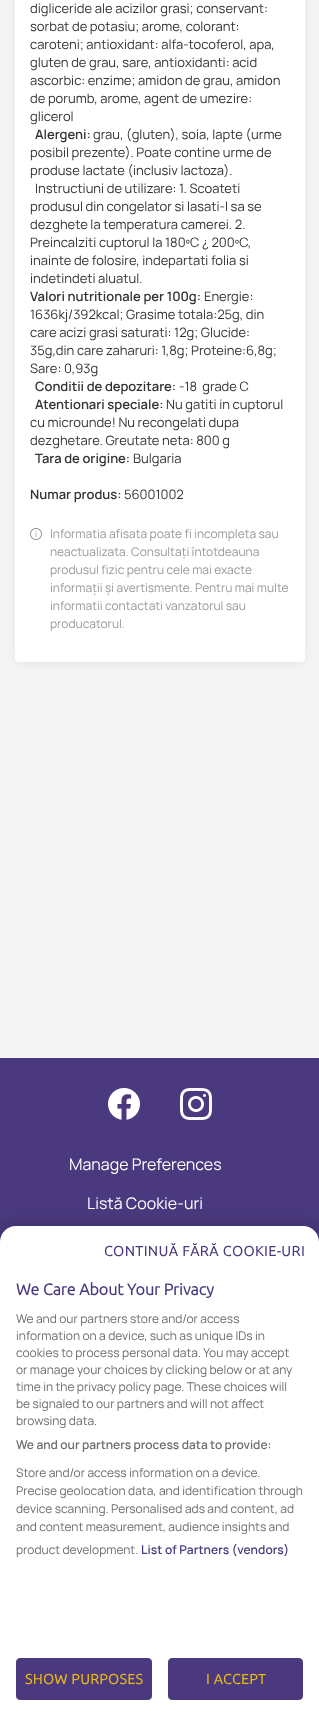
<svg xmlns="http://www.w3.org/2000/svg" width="319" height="1716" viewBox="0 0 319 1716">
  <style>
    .t1 { font: 13px Manrope; fill: #333; }
    .t2 { font: 600 13px Manrope; fill: #333; }
    .t3 { font: 12px Manrope; fill: #999; }
    .t4 { font: 16px Manrope; fill: #fff; }
    .t5 { font: bold 14px Ubuntu; letter-spacing: 0.7px; fill: #4a397e; }
    .t6 { font: bold 16px Ubuntu; fill: #4a397e; }
    .t7 { font: 12px Manrope; fill: #6d6d6d; }
    .t8 { font: 600 12px Manrope; fill: #6d6d6d; }
    .t9 { font: 600 12px Manrope; letter-spacing: 0.1px; fill: #4a397e; }
    .t10 { font: bold 14px Ubuntu; letter-spacing: 0.5px; fill: #e9b818; }
  </style>
  <rect width="100%" height="100%" fill="#f4f4f4"/>
  <rect x="19" y="-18" width="282" height="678" fill="#00000026" filter="blur(6px)"/>
  <rect x="15" y="-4" width="290" height="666" rx="4" fill="#fff"/>
  <text x="30" y="13" class="t1">digliceride ale acizilor grasi; conservant:</text>
  <text x="30" y="31" class="t1">sorbat de potasiu; arome, colorant:</text>
  <text x="30" y="49" class="t1">caroteni; antioxidant: alfa-tocoferol, apa,</text>
  <text x="30" y="67" class="t1">gluten de grau, sare, antioxidanti: acid</text>
  <text x="30" y="85" class="t1">ascorbic: enzime; amidon de grau, amidon</text>
  <text x="30" y="103" class="t1">de porumb, arome, agent de umezire:</text>
  <text x="30" y="121" class="t1">glicerol</text>
  <text x="35" y="139" class="t2">Alergeni:</text>
  <text x="93" y="139" class="t1">grau, (gluten), soia, lapte (urme</text>
  <text x="30" y="157" class="t1">posibil prezente). Poate contine urme de</text>
  <text x="30" y="175" class="t1">produse lactate (inclusiv lactoza).</text>
  <text x="35" y="193" class="t1">Instructiuni de utilizare: 1. Scoateti</text>
  <text x="30" y="211" class="t1">produsul din congelator si lasati-l sa se</text>
  <text x="30" y="229" class="t1">dezghete la temperatura camerei. 2.</text>
  <text x="30" y="247" class="t1">Preincalziti cuptorul la 180ºC ¿ 200ºC,</text>
  <text x="30" y="265" class="t1">inainte de folosire, indepartati folia si</text>
  <text x="30" y="283" class="t1">indetindeti aluatul.</text>
  <text x="30" y="301" class="t2">Valori nutritionale per 100g:</text>
  <text x="204" y="301" class="t1">Energie:</text>
  <text x="30" y="319" class="t1">1636kj/392kcal; Grasime totala:25g, din</text>
  <text x="30" y="337" class="t1">care acizi grasi saturati: 12g; Glucide:</text>
  <text x="30" y="355" class="t1">35g,din care zaharuri: 1,8g; Proteine:6,8g;</text>
  <text x="30" y="373" class="t1">Sare: 0,93g</text>
  <text x="35" y="391" class="t2">Conditii de depozitare:</text>
  <text x="179" y="391" class="t1" xml:space="preserve">-18  grade C</text>
  <text x="35" y="409" class="t2">Atentionari speciale:</text>
  <text x="166" y="409" class="t1">Nu gatiti in cuptorul</text>
  <text x="30" y="427" class="t1">cu microunde! Nu recongelati dupa</text>
  <text x="30" y="445" class="t1">dezghetare. Greutate neta: 800 g</text>
  <text x="35" y="463" class="t2">Tara de origine:</text>
  <text x="133" y="463" class="t1">Bulgaria</text>
  <text x="30" y="499" class="t2">Numar produs:</text>
  <text x="124" y="499" class="t1">56001002</text>
  <image x="30" y="528" width="12" height="12" href="images/1.png"/>
  <text x="50" y="538" class="t3">Informatia afisata poate fi incompleta sau</text>
  <text x="50" y="556" class="t3">neactualizata. Consultați întotdeauna</text>
  <text x="50" y="574" class="t3">produsul fizic pentru cele mai exacte</text>
  <text x="50" y="592" class="t3">informații și avertismente. Pentru mai multe</text>
  <text x="50" y="610" class="t3">informatii contactati vanzatorul sau</text>
  <text x="50" y="628" class="t3">producatorul.</text>
  <rect x="0" y="1058" width="319" height="184" fill="#4a397e"/>
  <image x="108" y="1088" width="32" height="32" href="images/2.png"/>
  <image x="180" y="1088" width="32" height="32" href="images/3.png"/>
  <text x="69" y="1170" class="t4">Manage Preferences</text>
  <text x="87" y="1209" class="t4">Listă Cookie-uri</text>
  <rect x="0" y="1226" width="319" height="490" rx="16" fill="#00000033" filter="blur(9px)"/>
  <path d="M16 1226H303C312 1226 319 1233 319 1242V1716H0V1242C0 1233 7 1226 16 1226Z" fill="#fff"/>
  <text x="104" y="1256" class="t5">CONTINUĂ FĂRĂ COOKIE-URI</text>
  <text x="16" y="1295" class="t6">We Care About Your Privacy</text>
  <text x="16" y="1323" class="t7">We and our partners store and/or access</text>
  <text x="16" y="1340" class="t7">information on a device, such as unique IDs in</text>
  <text x="16" y="1357" class="t7">cookies to process personal data. You may accept</text>
  <text x="16" y="1374" class="t7">or manage your choices by clicking below or at any</text>
  <text x="16" y="1391" class="t7">time in the privacy policy page. These choices will</text>
  <text x="16" y="1408" class="t7">be signaled to our partners and will not affect</text>
  <text x="16" y="1425" class="t7">browsing data.</text>
  <text x="16" y="1449" class="t8">We and our partners process data to provide:</text>
  <text x="16" y="1477" class="t7">Store and/or access information on a device.</text>
  <text x="16" y="1495" class="t7">Precise geolocation data, and identification through</text>
  <text x="16" y="1513" class="t7">device scanning. Personalised ads and content, ad</text>
  <text x="16" y="1531" class="t7">and content measurement, audience insights and</text>
  <text x="16" y="1554" class="t7">product development.</text>
  <text x="141" y="1554" class="t9">List of Partners (vendors)</text>
  <rect x="16.5" y="1658.5" width="135" height="41" rx="3.5" fill="#4a397e" stroke="#4a397e"/>
  <text x="25" y="1684" class="t10">SHOW PURPOSES</text>
  <rect x="168.5" y="1658.5" width="134" height="41" rx="3.5" fill="#4a397e" stroke="#4a397e"/>
  <text x="206" y="1684" class="t10">I ACCEPT</text>
</svg>
